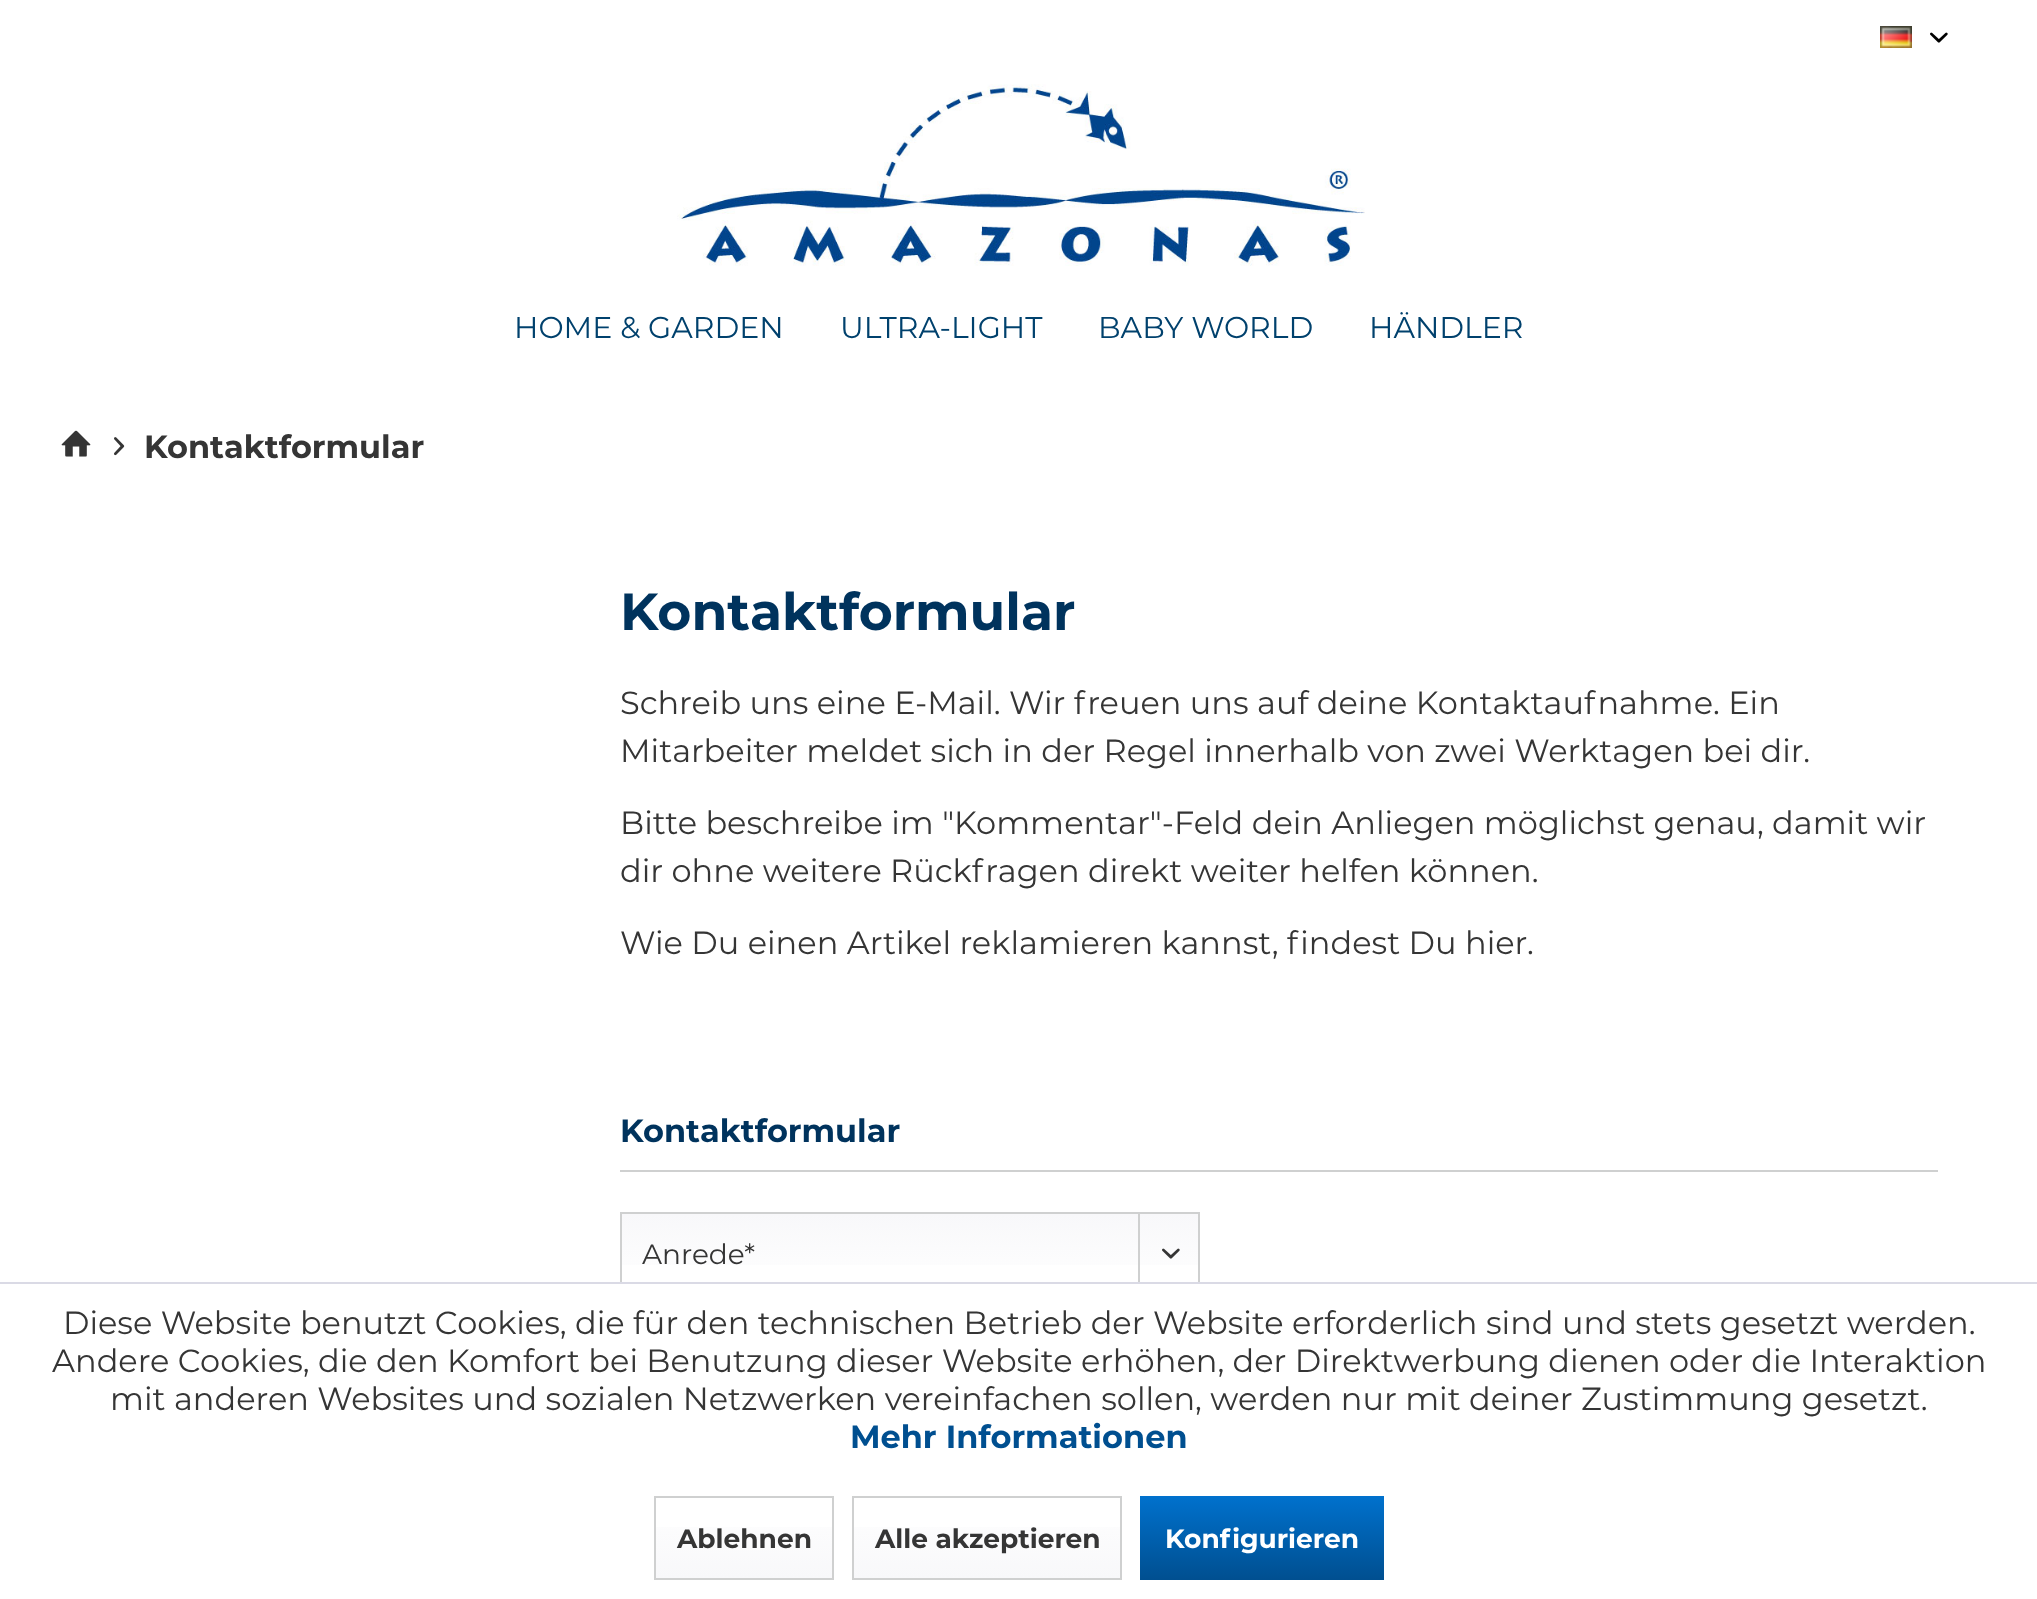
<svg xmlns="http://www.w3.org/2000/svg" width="2037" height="1599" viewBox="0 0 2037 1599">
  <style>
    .t1 { font: 30px Montserrat; fill: #00416d; }
    .t2 { font: bold 32px Montserrat; fill: #353535; }
    .t3 { font: bold 52px Montserrat; fill: #00335d; }
    .t4 { font: 32px Montserrat; fill: #353535; }
    .t5 { font: bold 32px Montserrat; fill: #00335d; }
    .t6 { font: 28px Montserrat; fill: #353535; }
    .t7 { font: bold 32px Montserrat; fill: #004f90; }
    .t8 { font: bold 26.5px Montserrat; fill: #353535; }
    .t9 { font: bold 26.5px Montserrat; fill: #fff; }
  </style>
  <defs>
    <linearGradient id="g1" gradientUnits="userSpaceOnUse" x1="910" y1="1214" x2="910" y2="1294"><stop offset="0" stop-color="#f8f8fa"/><stop offset="1" stop-color="#fff"/></linearGradient>
    <linearGradient id="g2" gradientUnits="userSpaceOnUse" x1="744" y1="1498" x2="744" y2="1578"><stop offset="0" stop-color="#fff"/><stop offset="1" stop-color="#f8f8fa"/></linearGradient>
    <linearGradient id="g3" gradientUnits="userSpaceOnUse" x1="987" y1="1498" x2="987" y2="1578"><stop offset="0" stop-color="#fff"/><stop offset="1" stop-color="#f8f8fa"/></linearGradient>
    <linearGradient id="g4" gradientUnits="userSpaceOnUse" x1="1262" y1="1496" x2="1262" y2="1580"><stop offset="0" stop-color="#0071cd"/><stop offset="1" stop-color="#004f90"/></linearGradient>
  </defs>
  <rect width="100%" height="100%" fill="#fff"/>
  <image x="1880" y="26" width="32" height="22" href="images/1.png"/>
  <image x="1930" y="32" width="18" height="11" href="images/2.png"/>
  <image x="677" y="84" width="688" height="182" href="images/3.png"/>
  <text x="514" y="338" class="t1">HOME &amp; GARDEN</text>
  <text x="840" y="338" class="t1">ULTRA-LIGHT</text>
  <text x="1098" y="338" class="t1">BABY WORLD</text>
  <text x="1369" y="338" class="t1">HÄNDLER</text>
  <image x="61" y="430" width="30" height="27" href="images/4.png"/>
  <image x="114" y="437" width="11" height="19" href="images/5.png"/>
  <text x="144" y="458" class="t2">Kontaktformular</text>
  <text x="620" y="630" class="t3">Kontaktformular</text>
  <text x="620" y="714" class="t4">Schreib uns eine E-Mail. Wir freuen uns auf deine Kontaktaufnahme. Ein</text>
  <text x="620" y="762" class="t4">Mitarbeiter meldet sich in der Regel innerhalb von zwei Werktagen bei dir.</text>
  <text x="620" y="834" class="t4">Bitte beschreibe im "Kommentar"-Feld dein Anliegen möglichst genau, damit wir</text>
  <text x="620" y="882" class="t4">dir ohne weitere Rückfragen direkt weiter helfen können.</text>
  <text x="620" y="954" class="t4">Wie Du einen Artikel reklamieren kannst, findest Du hier.</text>
  <rect x="620" y="1170" width="1318" height="2" fill="#cfd0d0"/>
  <text x="620" y="1142" class="t5">Kontaktformular</text>
  <rect x="622" y="1214" width="576" height="51" fill="url(#g1)"/>
  <rect x="621" y="1213" width="578" height="82" fill="none" stroke="#cfd0d0" stroke-width="2"/>
  <text x="642" y="1264" class="t6">Anrede*</text>
  <rect x="1138" y="1214" width="2" height="68" fill="#cfd0d0"/>
  <image x="1162" y="1248" width="18" height="11" href="images/6.png"/>
  <rect x="620" y="1284" width="580" height="12" fill="#fff"/>
  <rect x="0" y="1282" width="2037" height="2" fill="#dadae5"/>
  <text x="63" y="1334" class="t4">Diese Website benutzt Cookies, die für den technischen Betrieb der Website erforderlich sind und stets gesetzt werden.</text>
  <text x="52" y="1372" class="t4">Andere Cookies, die den Komfort bei Benutzung dieser Website erhöhen, der Direktwerbung dienen oder die Interaktion</text>
  <text x="110" y="1410" class="t4">mit anderen Websites und sozialen Netzwerken vereinfachen sollen, werden nur mit deiner Zustimmung gesetzt.</text>
  <text x="850" y="1448" class="t7">Mehr Informationen</text>
  <rect x="656" y="1527" width="176" height="51" fill="url(#g2)"/>
  <rect x="655" y="1497" width="178" height="82" fill="none" stroke="#cfd0d0" stroke-width="2"/>
  <text x="677" y="1548" class="t8">Ablehnen</text>
  <rect x="854" y="1527" width="266" height="51" fill="url(#g3)"/>
  <rect x="853" y="1497" width="268" height="82" fill="none" stroke="#cfd0d0" stroke-width="2"/>
  <text x="875" y="1548" class="t8">Alle akzeptieren</text>
  <rect x="1140" y="1496" width="244" height="84" fill="url(#g4)"/>
  <text x="1165" y="1548" class="t9">Konfigurieren</text>
</svg>
